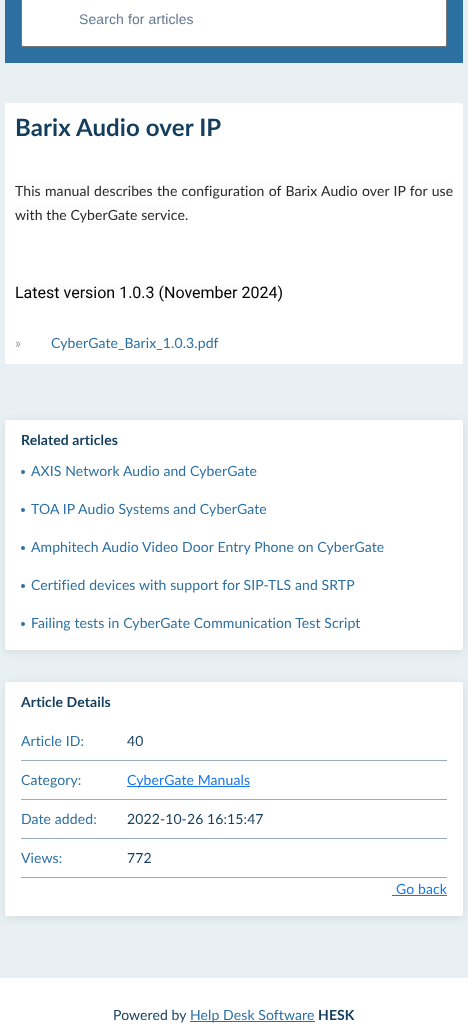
<svg xmlns="http://www.w3.org/2000/svg" width="468" height="1025" viewBox="0 0 468 1025">
  <style>
    .t1 { font: 14px Liberation Sans; letter-spacing: 0.1px; fill: #637892; }
    .t2 { font: bold 24px Lato; letter-spacing: 0.1px; fill: #133e5e; }
    .t3 { font: 14px Lato; letter-spacing: 0.1px; fill: #26282a; }
    .t4 { font: 16px Roboto; fill: #000; }
    .t5 { font: 14px Lato; letter-spacing: 0.1px; fill: #9c9c9c; }
    .t6 { font: 14px Lato; letter-spacing: 0.1px; fill: #2c70a2; }
    .t7 { font: bold 14px Lato; letter-spacing: 0.1px; fill: #133e5e; }
    .t8 { font: 14px Lato; letter-spacing: 0.1px; fill: #133e5e; }
    .t9 { font: 14px Lato; letter-spacing: 0.1px; fill: #1776ea; }
  </style>
  <rect width="100%" height="100%" fill="#fff"/>
  <rect x="0" y="0" width="468" height="978" fill="#e9f0f3"/>
  <rect x="5" y="0" width="458" height="63" fill="#2c70a2"/>
  <rect x="21.5" y="-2.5" width="425" height="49" rx="1.5" fill="#fff" stroke="#767676"/>
  <text x="79" y="24" class="t1">Search for articles</text>
  <rect x="5" y="103" width="458" height="261" rx="2" fill="#fff"/>
  <text x="15" y="136" class="t2">Barix Audio over IP</text>
  <rect x="15" y="182" width="438" height="17" fill="#fcfcfc"/>
  <text x="15" y="196" word-spacing="0.5" class="t3">This manual describes the configuration of Barix Audio over IP for use</text>
  <rect x="15" y="206" width="173" height="17" fill="#fcfcfc"/>
  <text x="15" y="220" class="t3">with the CyberGate service.</text>
  <rect x="15" y="284" width="268" height="17" fill="#fcfcfc"/>
  <text x="15" y="298" class="t4">Latest version 1.0.3 (November 2024)</text>
  <text x="15" y="348" class="t5">»</text>
  <text x="51" y="348" class="t6">CyberGate_Barix_1.0.3.pdf</text>
  <rect x="5" y="422" width="458" height="230" rx="2" fill="#26282a1a" filter="blur(4px)"/>
  <rect x="5" y="420" width="458" height="230" rx="2" fill="#fff"/>
  <text x="21" y="445" class="t7">Related articles</text>
  <circle cx="23" cy="472" r="2" fill="#2c70a2"/>
  <text x="31" y="476" class="t6">AXIS Network Audio and CyberGate</text>
  <circle cx="23" cy="510" r="2" fill="#2c70a2"/>
  <text x="31" y="514" class="t6">TOA IP Audio Systems and CyberGate</text>
  <circle cx="23" cy="548" r="2" fill="#2c70a2"/>
  <text x="31" y="552" class="t6">Amphitech Audio Video Door Entry Phone on CyberGate</text>
  <circle cx="23" cy="586" r="2" fill="#2c70a2"/>
  <text x="31" y="590" class="t6">Certified devices with support for SIP-TLS and SRTP</text>
  <circle cx="23" cy="624" r="2" fill="#2c70a2"/>
  <text x="31" y="628" class="t6">Failing tests in CyberGate Communication Test Script</text>
  <rect x="5" y="684" width="458" height="234" rx="2" fill="#26282a1a" filter="blur(4px)"/>
  <rect x="5" y="682" width="458" height="234" rx="2" fill="#fff"/>
  <text x="21" y="707" class="t7">Article Details</text>
  <rect x="21" y="760" width="426" height="1" fill="#9caabb"/>
  <text x="21" y="746" class="t6">Article ID:</text>
  <text x="127" y="746" class="t8">40</text>
  <rect x="21" y="799" width="426" height="1" fill="#9caabb"/>
  <text x="21" y="785" class="t6">Category:</text>
  <rect x="127" y="786" width="123" height="1" fill="#1776ea"/>
  <text x="127" y="785" class="t9">CyberGate Manuals</text>
  <rect x="21" y="838" width="426" height="1" fill="#9caabb"/>
  <text x="21" y="824" class="t6">Date added:</text>
  <text x="127" y="824" class="t8">2022-10-26 16:15:47</text>
  <rect x="21" y="877" width="426" height="1" fill="#9caabb"/>
  <text x="21" y="863" class="t6">Views:</text>
  <text x="127" y="863" class="t8">772</text>
  <text x="396" y="894" class="t9">Go back</text>
  <rect x="392" y="895" width="55" height="1" fill="#1776ea"/>
  <text x="113" y="1020" class="t8">Powered by</text>
  <rect x="190" y="1021" width="125" height="1" fill="#2c70a2"/>
  <text x="190" y="1020" class="t6">Help Desk Software</text>
  <text x="318" y="1020" class="t7">HESK</text>
</svg>
